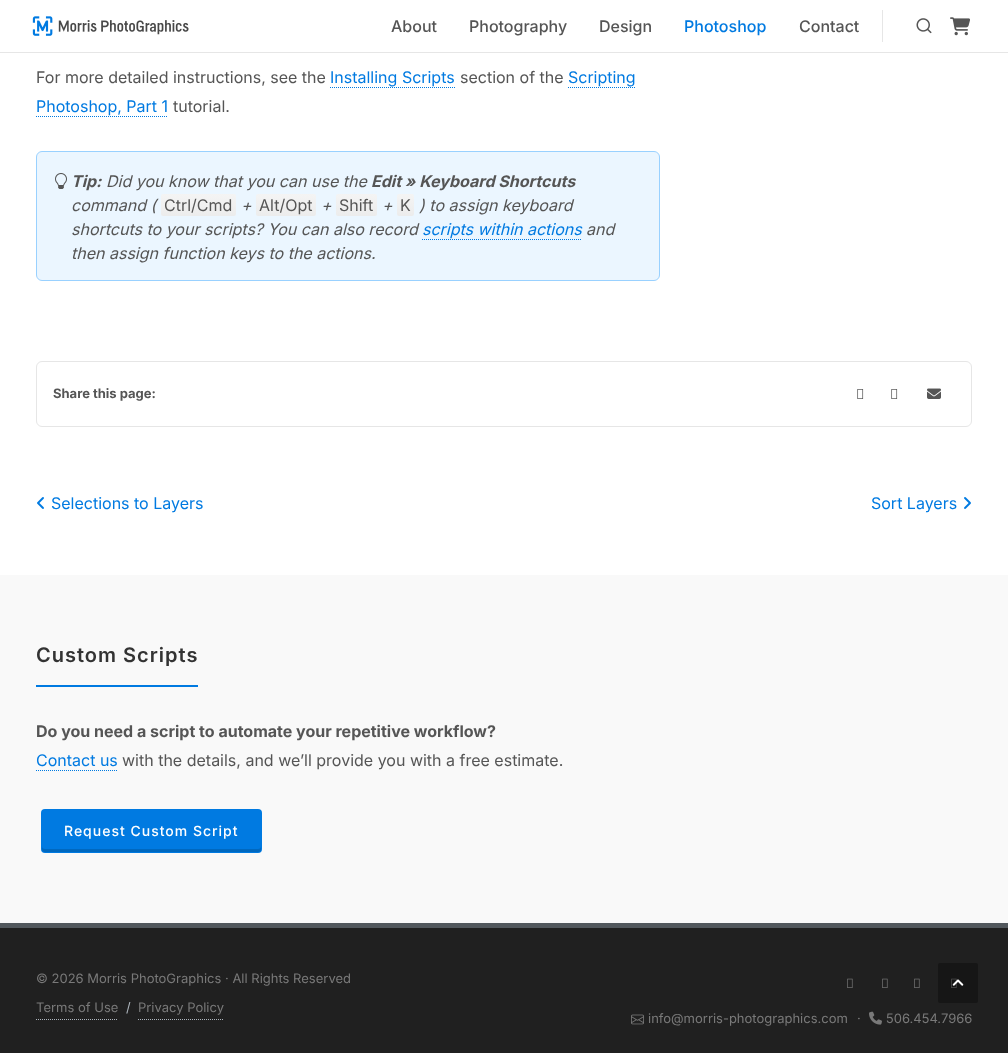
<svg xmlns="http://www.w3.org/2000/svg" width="1008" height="1053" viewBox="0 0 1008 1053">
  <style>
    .t1 { font: 500 16px Inter; fill: #555; }
    .t2 { font: 500 16px Inter; fill: #007ae1; }
    .t3 { font: 16px Inter; fill: #555; }
    .t4 { font: 16px Inter; fill: #007ae1; }
    .t5 { font: italic bold 16px Inter; fill: #555; }
    .t6 { font: italic 16px Inter; fill: #555; }
    .t7 { font: italic 16px Inter; fill: #007ae1; }
    .t8 { font: bold 13px Inter; fill: #555; }
    .t9 { font: 600 20px Inter; letter-spacing: 1px; fill: #333; }
    .t10 { font: bold 16px Inter; fill: #555; }
    .t11 { font: 500 14px Inter; letter-spacing: 1px; fill: #fff; }
    .t12 { font: 13px Inter; fill: #797979; }
    .t13 { font: 13px Inter; fill: #adb5bd; }
  </style>
  <defs>
    <linearGradient id="g1" gradientUnits="userSpaceOnUse" x1="199" y1="216" x2="199" y2="194"><stop offset="0" stop-color="#ececec"/><stop offset="1" stop-color="#f4f4f4"/></linearGradient>
    <linearGradient id="g2" gradientUnits="userSpaceOnUse" x1="286" y1="216" x2="286" y2="194"><stop offset="0" stop-color="#ececec"/><stop offset="1" stop-color="#f4f4f4"/></linearGradient>
    <linearGradient id="g3" gradientUnits="userSpaceOnUse" x1="357" y1="216" x2="357" y2="194"><stop offset="0" stop-color="#ececec"/><stop offset="1" stop-color="#f4f4f4"/></linearGradient>
    <linearGradient id="g4" gradientUnits="userSpaceOnUse" x1="406" y1="216" x2="406" y2="194"><stop offset="0" stop-color="#ececec"/><stop offset="1" stop-color="#f4f4f4"/></linearGradient>
  </defs>
  <rect width="100%" height="100%" fill="#fff"/>
  <rect x="0" y="52" width="1008" height="1" fill="#e6e6e6"/>
  <image x="32" y="16" width="157" height="20" href="images/1.png"/>
  <rect x="882" y="10" width="1" height="32" fill="#e6e6e6"/>
  <text x="391" y="32" class="t1">About</text>
  <text x="469" y="32" class="t1">Photography</text>
  <text x="599" y="32" class="t1">Design</text>
  <text x="684" y="32" class="t2">Photoshop</text>
  <text x="799" y="32" class="t1">Contact</text>
  <image x="916" y="18" width="16" height="16" href="images/2.png"/>
  <image x="950" y="17" width="20" height="19" href="images/3.png"/>
  <text x="36" y="83" class="t3">For more detailed instructions, see the</text>
  <text x="330" y="83" class="t4">Installing Scripts</text>
  <path d="M330 87.5H455" fill="none" stroke="#007ae1" stroke-dasharray="1 1"/>
  <text x="460" y="83" class="t3">section of the</text>
  <text x="568" y="83" class="t4">Scripting</text>
  <path d="M568 87.5H635" fill="none" stroke="#007ae1" stroke-dasharray="1 1"/>
  <text x="36" y="112" class="t4">Photoshop, Part 1</text>
  <path d="M36 116.5H168" fill="none" stroke="#007ae1" stroke-dasharray="1 1"/>
  <text x="173" y="112" class="t3">tutorial.</text>
  <rect x="36.5" y="151.5" width="623" height="129" rx="5.5" fill="#ebf6ff" stroke="#99d1ff"/>
  <image x="55" y="173" width="12" height="16" href="images/4.png"/>
  <text x="71" y="187" class="t5">Tip:</text>
  <text x="106" y="187" class="t6">Did you know that you can use the</text>
  <text x="371" y="187" class="t5">Edit » Keyboard Shortcuts</text>
  <text x="71" y="211" class="t6">command (</text>
  <rect x="161" y="194" width="75" height="22" rx="2" fill="url(#g1)"/>
  <text x="164" y="211" class="t3">Ctrl/Cmd</text>
  <text x="241" y="211" class="t6">+</text>
  <rect x="256" y="194" width="60" height="22" rx="2" fill="url(#g2)"/>
  <text x="259" y="211" class="t3">Alt/Opt</text>
  <text x="321" y="211" class="t6">+</text>
  <rect x="336" y="194" width="41" height="22" rx="2" fill="url(#g3)"/>
  <text x="339" y="211" class="t3">Shift</text>
  <text x="382" y="211" class="t6">+</text>
  <rect x="397" y="194" width="17" height="22" rx="2" fill="url(#g4)"/>
  <text x="400" y="211" class="t3">K</text>
  <text x="419" y="211" class="t6">) to assign keyboard</text>
  <text x="71" y="235" class="t6">shortcuts to your scripts? You can also record</text>
  <text x="422" y="235" class="t7">scripts within actions</text>
  <path d="M422 239.5H582" fill="none" stroke="#007ae1" stroke-dasharray="1 1"/>
  <text x="586" y="235" class="t6">and</text>
  <text x="71" y="259" class="t6">then assign function keys to the actions.</text>
  <rect x="36.5" y="361.5" width="935" height="65" rx="5.5" fill="none" stroke="#e6e6e6"/>
  <text x="53" y="398" class="t8">Share this page:</text>
  <image x="857" y="389" width="7" height="10" href="images/5.png"/>
  <image x="891" y="389" width="7" height="10" href="images/5.png"/>
  <image x="927" y="388" width="14" height="11" href="images/6.png"/>
  <image x="37" y="497" width="7" height="12" href="images/7.png"/>
  <text x="51" y="509" class="t4">Selections to Layers</text>
  <text x="871" y="509" class="t4">Sort Layers</text>
  <image x="964" y="497" width="7" height="12" href="images/8.png"/>
  <rect x="0" y="575" width="1008" height="348" fill="#f9f9f9"/>
  <text x="36" y="662" class="t9">Custom Scripts</text>
  <rect x="36" y="685" width="162" height="2" fill="#007ae1"/>
  <text x="36" y="737" class="t10">Do you need a script to automate your repetitive workflow?</text>
  <text x="36" y="766" class="t4">Contact us</text>
  <path d="M36 770.5H118" fill="none" stroke="#007ae1" stroke-dasharray="1 1"/>
  <text x="122" y="766" class="t3">with the details, and we’ll provide you with a free estimate.</text>
  <rect x="41" y="809" width="221" height="44" rx="4" fill="#007ae1"/>
  <path d="M42 846V849C42 851 43 852 45 852H258C260 852 261 851 261 849V846C261 848 260 849 258 849H45C43 849 42 848 42 846Z" fill="#0068bf"/>
  <text x="64" y="836" class="t11">Request Custom Script</text>
  <rect x="0" y="923" width="1008" height="5" fill="#52585d"/>
  <rect x="0" y="928" width="1008" height="125" fill="#202020"/>
  <text x="36" y="983" class="t12">© 2026 Morris PhotoGraphics · All Rights Reserved</text>
  <path d="M36 1019.5H118" fill="none" stroke="#adb5bd" stroke-dasharray="1 1"/>
  <text x="36" y="1012" class="t12">Terms of Use</text>
  <text x="126" y="1012" class="t13">/</text>
  <path d="M138 1019.5H224" fill="none" stroke="#adb5bd" stroke-dasharray="1 1"/>
  <text x="138" y="1012" class="t12">Privacy Policy</text>
  <image x="847" y="978" width="6" height="10" href="images/9.png"/>
  <image x="882" y="978" width="6" height="10" href="images/9.png"/>
  <image x="914" y="978" width="6" height="10" href="images/9.png"/>
  <image x="951" y="978" width="6" height="10" href="images/9.png"/>
  <image x="631" y="1014" width="13" height="11" href="images/10.png"/>
  <text x="648" y="1023" class="t12">info@morris-photographics.com</text>
  <text x="857" y="1023" class="t12">·</text>
  <image x="869" y="1011" width="13" height="14" href="images/11.png"/>
  <text x="886" y="1023" class="t12">506.454.7966</text>
  <rect x="938" y="963" width="40" height="40" rx="2" fill="#0000004d"/>
  <image x="952" y="979" width="12" height="7" href="images/12.png"/>
</svg>
